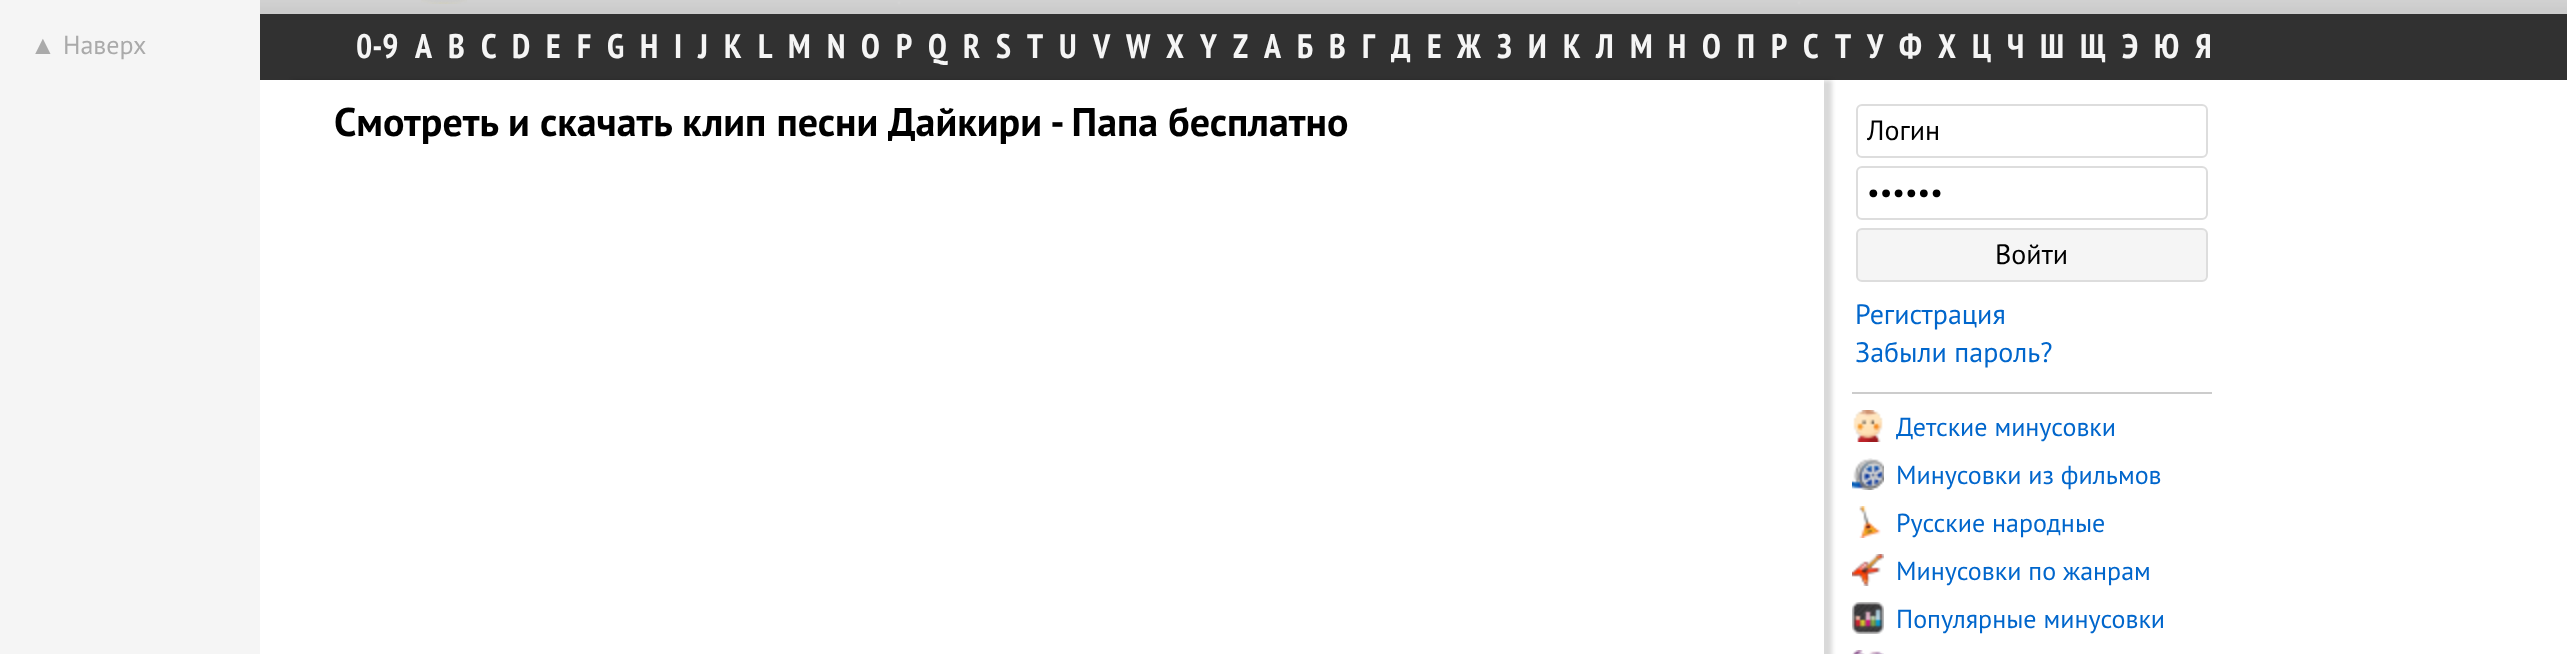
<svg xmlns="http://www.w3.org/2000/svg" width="2567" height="654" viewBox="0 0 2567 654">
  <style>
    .t1 { font: 26px Liberation Serif; fill: #aaa; }
    .t2 { font: 26px PT Sans; fill: #aaa; }
    .t3 { font: bold 34px PT Sans Narrow; fill: #f5f5f5; }
    .t4 { font: bold 40px PT Sans; fill: #000; }
    .t5 { font: 28px PT Sans; fill: #000; }
    .t6 { font: 28px PT Sans; fill: #06c; }
    .t7 { font: 26px PT Sans; fill: #06c; }
  </style>
  <defs>
    <clipPath id="clip1"><path d="M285 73H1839V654H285ZM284 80H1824V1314H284Z" clip-rule="evenodd"/></clipPath>
  </defs>
  <rect width="100%" height="100%" fill="#fff"/>
  <rect x="0" y="0" width="260" height="654" fill="#f5f5f5"/>
  <text x="30" y="54" class="t1">▲</text>
  <text x="63" y="54" class="t2">Наверх</text>
  <image x="260" y="0" width="2307" height="14" href="images/1.png"/>
  <image x="421" y="0" width="46" height="4" href="images/2.png"/>
  <rect x="260" y="14" width="2307" height="66" fill="#313131"/>
  <text x="356" y="58" class="t3">0-9</text>
  <text x="415" y="58" class="t3">A</text>
  <text x="448" y="58" class="t3">B</text>
  <text x="481" y="58" class="t3">C</text>
  <text x="512" y="58" class="t3">D</text>
  <text x="546" y="58" class="t3">E</text>
  <text x="577" y="58" class="t3">F</text>
  <text x="607" y="58" class="t3">G</text>
  <text x="640" y="58" class="t3">H</text>
  <text x="674" y="58" class="t3">I</text>
  <text x="698" y="58" class="t3">J</text>
  <text x="724" y="58" class="t3">K</text>
  <text x="758" y="58" class="t3">L</text>
  <text x="788" y="58" class="t3">M</text>
  <text x="827" y="58" class="t3">N</text>
  <text x="861" y="58" class="t3">O</text>
  <text x="896" y="58" class="t3">P</text>
  <text x="928" y="58" class="t3">Q</text>
  <text x="963" y="58" class="t3">R</text>
  <text x="996" y="58" class="t3">S</text>
  <text x="1027" y="58" class="t3">T</text>
  <text x="1059" y="58" class="t3">U</text>
  <text x="1093" y="58" class="t3">V</text>
  <text x="1126" y="58" class="t3">W</text>
  <text x="1166" y="58" class="t3">X</text>
  <text x="1200" y="58" class="t3">Y</text>
  <text x="1233" y="58" class="t3">Z</text>
  <text x="1264" y="58" class="t3">А</text>
  <text x="1297" y="58" class="t3">Б</text>
  <text x="1329" y="58" class="t3">В</text>
  <text x="1362" y="58" class="t3">Г</text>
  <text x="1391" y="58" class="t3">Д</text>
  <text x="1427" y="58" class="t3">Е</text>
  <text x="1457" y="58" class="t3">Ж</text>
  <text x="1497" y="58" class="t3">З</text>
  <text x="1528" y="58" class="t3">И</text>
  <text x="1563" y="58" class="t3">К</text>
  <text x="1596" y="58" class="t3">Л</text>
  <text x="1630" y="58" class="t3">М</text>
  <text x="1668" y="58" class="t3">Н</text>
  <text x="1702" y="58" class="t3">О</text>
  <text x="1737" y="58" class="t3">П</text>
  <text x="1771" y="58" class="t3">Р</text>
  <text x="1803" y="58" class="t3">С</text>
  <text x="1835" y="58" class="t3">Т</text>
  <text x="1867" y="58" class="t3">У</text>
  <text x="1899" y="58" class="t3">Ф</text>
  <text x="1938" y="58" class="t3">Х</text>
  <text x="1972" y="58" class="t3">Ц</text>
  <text x="2007" y="58" class="t3">Ч</text>
  <text x="2040" y="58" class="t3">Ш</text>
  <text x="2080" y="58" class="t3">Щ</text>
  <text x="2122" y="58" class="t3">Э</text>
  <text x="2154" y="58" class="t3">Ю</text>
  <text x="2195" y="58" class="t3">Я</text>
  <g clip-path="url(#clip1)">
    <rect x="292" y="80" width="1540" height="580" fill="#00000026" filter="blur(2px)"/>
  </g>
  <text x="334" y="136" class="t4">Смотреть и скачать клип песни Дайкири - Папа бесплатно</text>
  <rect x="1857" y="105" width="350" height="52" rx="5" fill="none" stroke="#ddd" stroke-width="2"/>
  <text x="1867" y="140" class="t5">Логин</text>
  <rect x="1857" y="167" width="350" height="52" rx="5" fill="none" stroke="#ddd" stroke-width="2"/>
  <text x="1867" y="202" class="t5">••••••</text>
  <rect x="1857" y="229" width="350" height="52" rx="5" fill="#f5f5f5" stroke="#ddd" stroke-width="2"/>
  <text x="1995" y="264" class="t5">Войти</text>
  <text x="1855" y="324" class="t6">Регистрация</text>
  <text x="1855" y="362" class="t6">Забыли пароль?</text>
  <rect x="1852" y="392" width="360" height="2" fill="#ccc"/>
  <image x="1853" y="410" width="30" height="32" href="images/3.png"/>
  <text x="1896" y="436" class="t7">Детские минусовки</text>
  <image x="1852" y="458" width="32" height="32" href="images/4.png"/>
  <text x="1896" y="484" class="t7">Минусовки из фильмов</text>
  <image x="1859" y="506" width="22" height="32" href="images/5.png"/>
  <text x="1896" y="532" class="t7">Русские народные</text>
  <image x="1852" y="554" width="32" height="32" href="images/6.png"/>
  <text x="1896" y="580" class="t7">Минусовки по жанрам</text>
  <image x="1852" y="602" width="32" height="32" href="images/7.png"/>
  <text x="1896" y="628" class="t7">Популярные минусовки</text>
  <image x="1852" y="650" width="32" height="4" href="images/8.png"/>
</svg>
